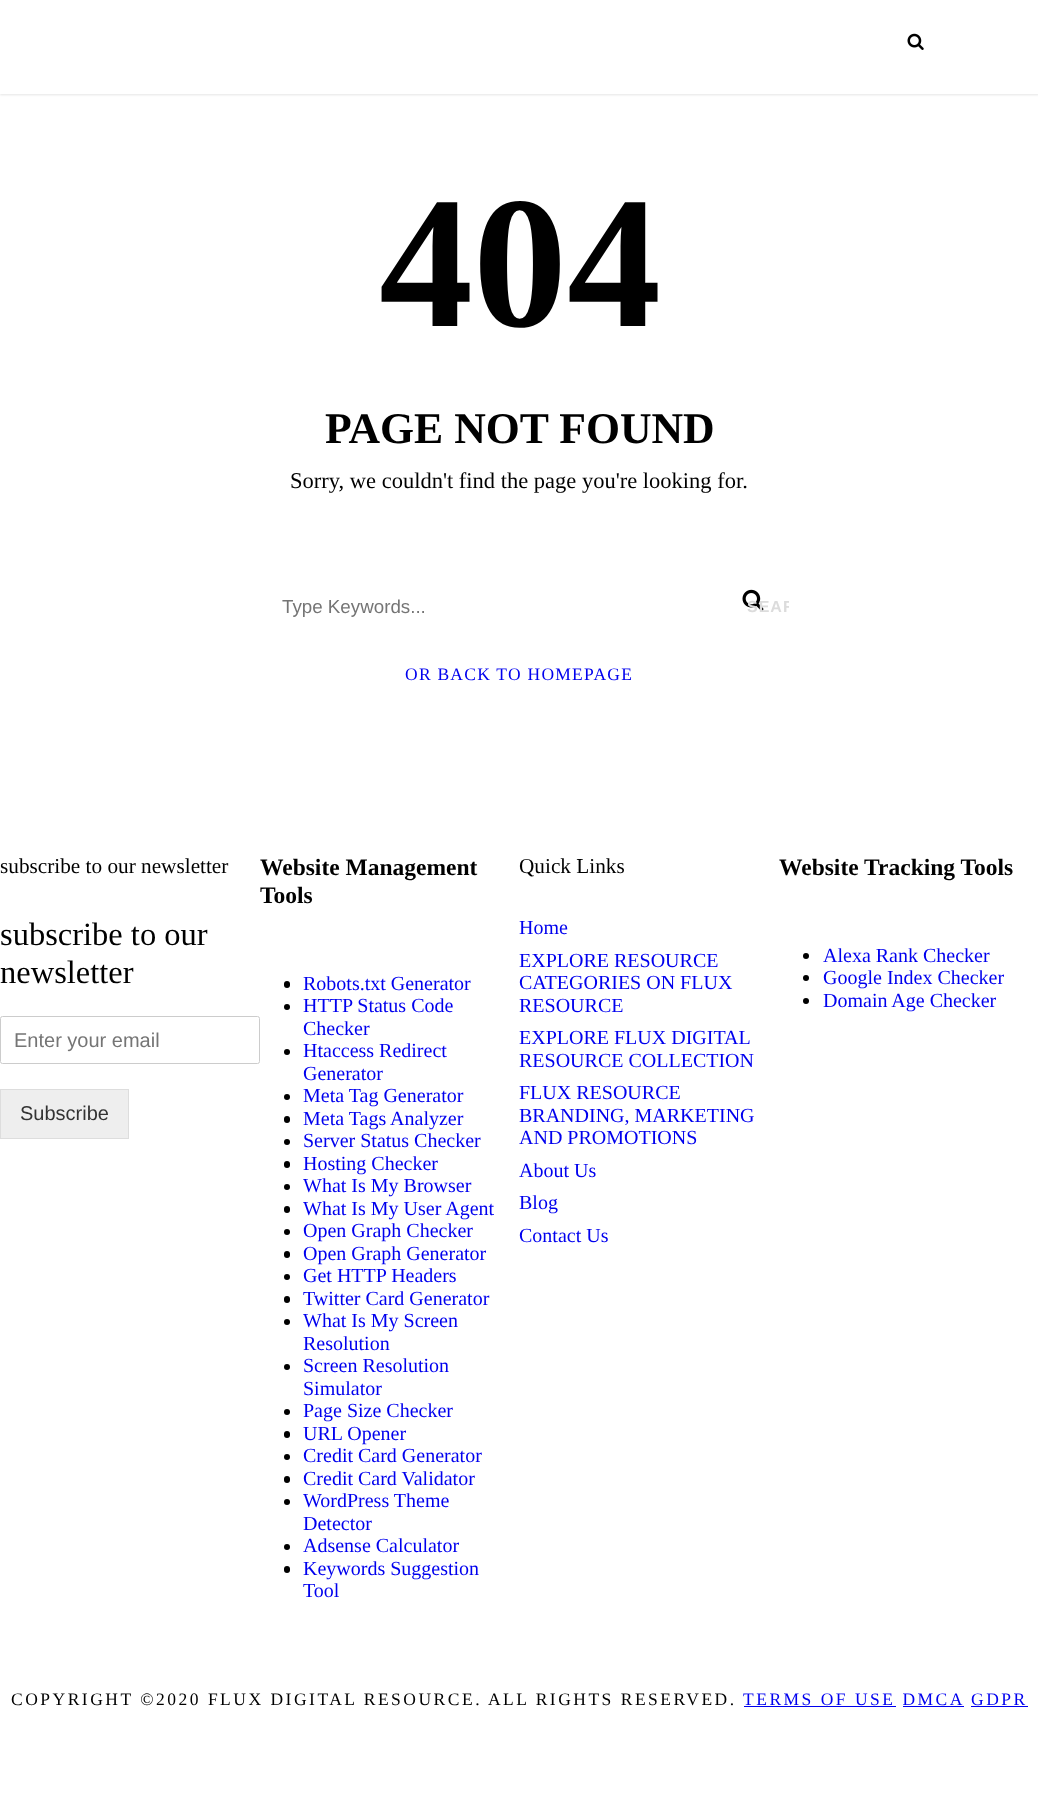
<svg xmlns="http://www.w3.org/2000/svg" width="1038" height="1819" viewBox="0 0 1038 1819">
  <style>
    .t1 { font: bold 188px Liberation Serif; fill: #000; }
    .t2 { font: bold 43.75px Liberation Serif; fill: #000; }
    .t3 { font: 22.5px Liberation Serif; fill: #000; }
    .t4 { font: 18.75px Liberation Sans; fill: #757575; }
    .t5 { font: bold 16px Liberation Sans; letter-spacing: 1px; fill: #dcdcdc; }
    .t6 { font: 17.5px Liberation Serif; letter-spacing: 1.25px; fill: #00e; }
    .t7 { font: 21.25px Liberation Serif; fill: #000; }
    .t8 { font: 32.5px Liberation Serif; fill: #000; }
    .t9 { font: 20px Liberation Sans; fill: #757575; }
    .t10 { font: 20px Liberation Sans; fill: #333; }
    .t11 { font: bold 23.5px Liberation Serif; fill: #000; }
    .t12 { font: 20px Liberation Serif; fill: #00e; }
    .t13 { font: 17.5px Liberation Serif; letter-spacing: 2.5px; fill: #000; }
    .t14 { font: 17.5px Liberation Serif; letter-spacing: 2.5px; fill: #00e; }
  </style>
  <defs>
    <clipPath id="clip1"><path d="M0 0H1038V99H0ZM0 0H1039V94H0Z" clip-rule="evenodd"/></clipPath>
    <clipPath id="clip2"><rect x="706" y="566" width="83" height="80"/></clipPath>
  </defs>
  <rect width="100%" height="100%" fill="#fff"/>
  <g clip-path="url(#clip1)">
    <rect x="0" y="1" width="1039" height="94" fill="#0000001a" filter="blur(1px)"/>
  </g>
  <image x="907" y="33" width="17" height="17" href="images/1.png"/>
  <text x="379" y="326" class="t1">404</text>
  <text x="325" y="443" class="t2">PAGE NOT FOUND</text>
  <text x="290" y="488" class="t3">Sorry, we couldn't find the page you're looking for.</text>
  <text x="282" y="613" class="t4">Type Keywords...</text>
  <image x="742" y="589" width="22" height="22" href="images/2.png"/>
  <g clip-path="url(#clip2)">
    <text x="747" y="612" class="t5">SEAR</text>
  </g>
  <text x="405" y="680" class="t6">OR BACK TO HOMEPAGE</text>
  <text x="0" y="873" class="t7">subscribe to our newsletter</text>
  <text x="0" y="945" class="t8">subscribe to our</text>
  <text x="0" y="983" class="t8">newsletter</text>
  <rect x="0.5" y="1016.5" width="259" height="47" rx="2" fill="none" stroke="#ccc"/>
  <text x="14" y="1047" class="t9">Enter your email</text>
  <rect x="0.5" y="1089.5" width="128" height="49" fill="#eee" stroke="#ddd"/>
  <text x="20" y="1120" class="t10">Subscribe</text>
  <text x="260" y="875" class="t11">Website Management</text>
  <text x="260" y="903" class="t11">Tools</text>
  <rect x="284" y="981" width="6" height="7" rx="3" fill="#000"/>
  <text x="303" y="990" class="t12">Robots.txt Generator</text>
  <circle cx="287" cy="1007" r="3" fill="#000"/>
  <text x="303" y="1012" class="t12">HTTP Status Code</text>
  <text x="303" y="1035" class="t12">Checker</text>
  <circle cx="287" cy="1052" r="3" fill="#000"/>
  <text x="303" y="1057" class="t12">Htaccess Redirect</text>
  <text x="303" y="1080" class="t12">Generator</text>
  <circle cx="287" cy="1097" r="3" fill="#000"/>
  <text x="303" y="1102" class="t12">Meta Tag Generator</text>
  <rect x="284" y="1116" width="6" height="7" rx="3" fill="#000"/>
  <text x="303" y="1125" class="t12">Meta Tags Analyzer</text>
  <circle cx="287" cy="1142" r="3" fill="#000"/>
  <text x="303" y="1147" class="t12">Server Status Checker</text>
  <rect x="284" y="1161" width="6" height="7" rx="3" fill="#000"/>
  <text x="303" y="1170" class="t12">Hosting Checker</text>
  <circle cx="287" cy="1187" r="3" fill="#000"/>
  <text x="303" y="1192" class="t12">What Is My Browser</text>
  <rect x="284" y="1206" width="6" height="7" rx="3" fill="#000"/>
  <text x="303" y="1215" class="t12">What Is My User Agent</text>
  <circle cx="287" cy="1232" r="3" fill="#000"/>
  <text x="303" y="1237" class="t12">Open Graph Checker</text>
  <rect x="284" y="1251" width="6" height="7" rx="3" fill="#000"/>
  <text x="303" y="1260" class="t12">Open Graph Generator</text>
  <circle cx="287" cy="1277" r="3" fill="#000"/>
  <text x="303" y="1282" class="t12">Get HTTP Headers</text>
  <rect x="284" y="1296" width="6" height="7" rx="3" fill="#000"/>
  <text x="303" y="1305" class="t12">Twitter Card Generator</text>
  <circle cx="287" cy="1322" r="3" fill="#000"/>
  <text x="303" y="1327" class="t12">What Is My Screen</text>
  <text x="303" y="1350" class="t12">Resolution</text>
  <circle cx="287" cy="1367" r="3" fill="#000"/>
  <text x="303" y="1372" class="t12">Screen Resolution</text>
  <text x="303" y="1395" class="t12">Simulator</text>
  <circle cx="287" cy="1412" r="3" fill="#000"/>
  <text x="303" y="1417" class="t12">Page Size Checker</text>
  <rect x="284" y="1431" width="6" height="7" rx="3" fill="#000"/>
  <text x="303" y="1440" class="t12">URL Opener</text>
  <circle cx="287" cy="1457" r="3" fill="#000"/>
  <text x="303" y="1462" class="t12">Credit Card Generator</text>
  <rect x="284" y="1476" width="6" height="7" rx="3" fill="#000"/>
  <text x="303" y="1485" class="t12">Credit Card Validator</text>
  <circle cx="287" cy="1502" r="3" fill="#000"/>
  <text x="303" y="1507" class="t12">WordPress Theme</text>
  <text x="303" y="1530" class="t12">Detector</text>
  <circle cx="287" cy="1547" r="3" fill="#000"/>
  <text x="303" y="1552" class="t12">Adsense Calculator</text>
  <rect x="284" y="1566" width="6" height="7" rx="3" fill="#000"/>
  <text x="303" y="1575" class="t12">Keywords Suggestion</text>
  <text x="303" y="1597" class="t12">Tool</text>
  <text x="519" y="873" class="t7">Quick Links</text>
  <text x="519" y="934" class="t12">Home</text>
  <text x="519" y="967" class="t12">EXPLORE RESOURCE</text>
  <text x="519" y="989" class="t12">CATEGORIES ON FLUX</text>
  <text x="519" y="1012" class="t12">RESOURCE</text>
  <text x="519" y="1044" class="t12">EXPLORE FLUX DIGITAL</text>
  <text x="519" y="1067" class="t12">RESOURCE COLLECTION</text>
  <text x="519" y="1099" class="t12">FLUX RESOURCE</text>
  <text x="519" y="1122" class="t12">BRANDING, MARKETING</text>
  <text x="519" y="1144" class="t12">AND PROMOTIONS</text>
  <text x="519" y="1177" class="t12">About Us</text>
  <text x="519" y="1209" class="t12">Blog</text>
  <text x="519" y="1242" class="t12">Contact Us</text>
  <text x="779" y="875" class="t11">Website Tracking Tools</text>
  <circle cx="806" cy="956" r="3" fill="#000"/>
  <text x="823" y="962" class="t12">Alexa Rank Checker</text>
  <circle cx="806" cy="978" r="3" fill="#000"/>
  <text x="823" y="984" class="t12">Google Index Checker</text>
  <circle cx="806" cy="1001" r="3" fill="#000"/>
  <text x="823" y="1007" class="t12">Domain Age Checker</text>
  <text x="11" y="1705" class="t13">COPYRIGHT ©2020 FLUX DIGITAL RESOURCE. ALL RIGHTS RESERVED.</text>
  <text x="743" y="1705" class="t14">TERMS OF USE DMCA</text>
  <rect x="744" y="1706" width="152" height="1" fill="#00e"/>
  <text x="971" y="1705" class="t14">GDPR</text>
  <rect x="971" y="1706" width="57" height="1" fill="#00e"/>
  <rect x="903" y="1706" width="61" height="1" fill="#00e"/>
</svg>
